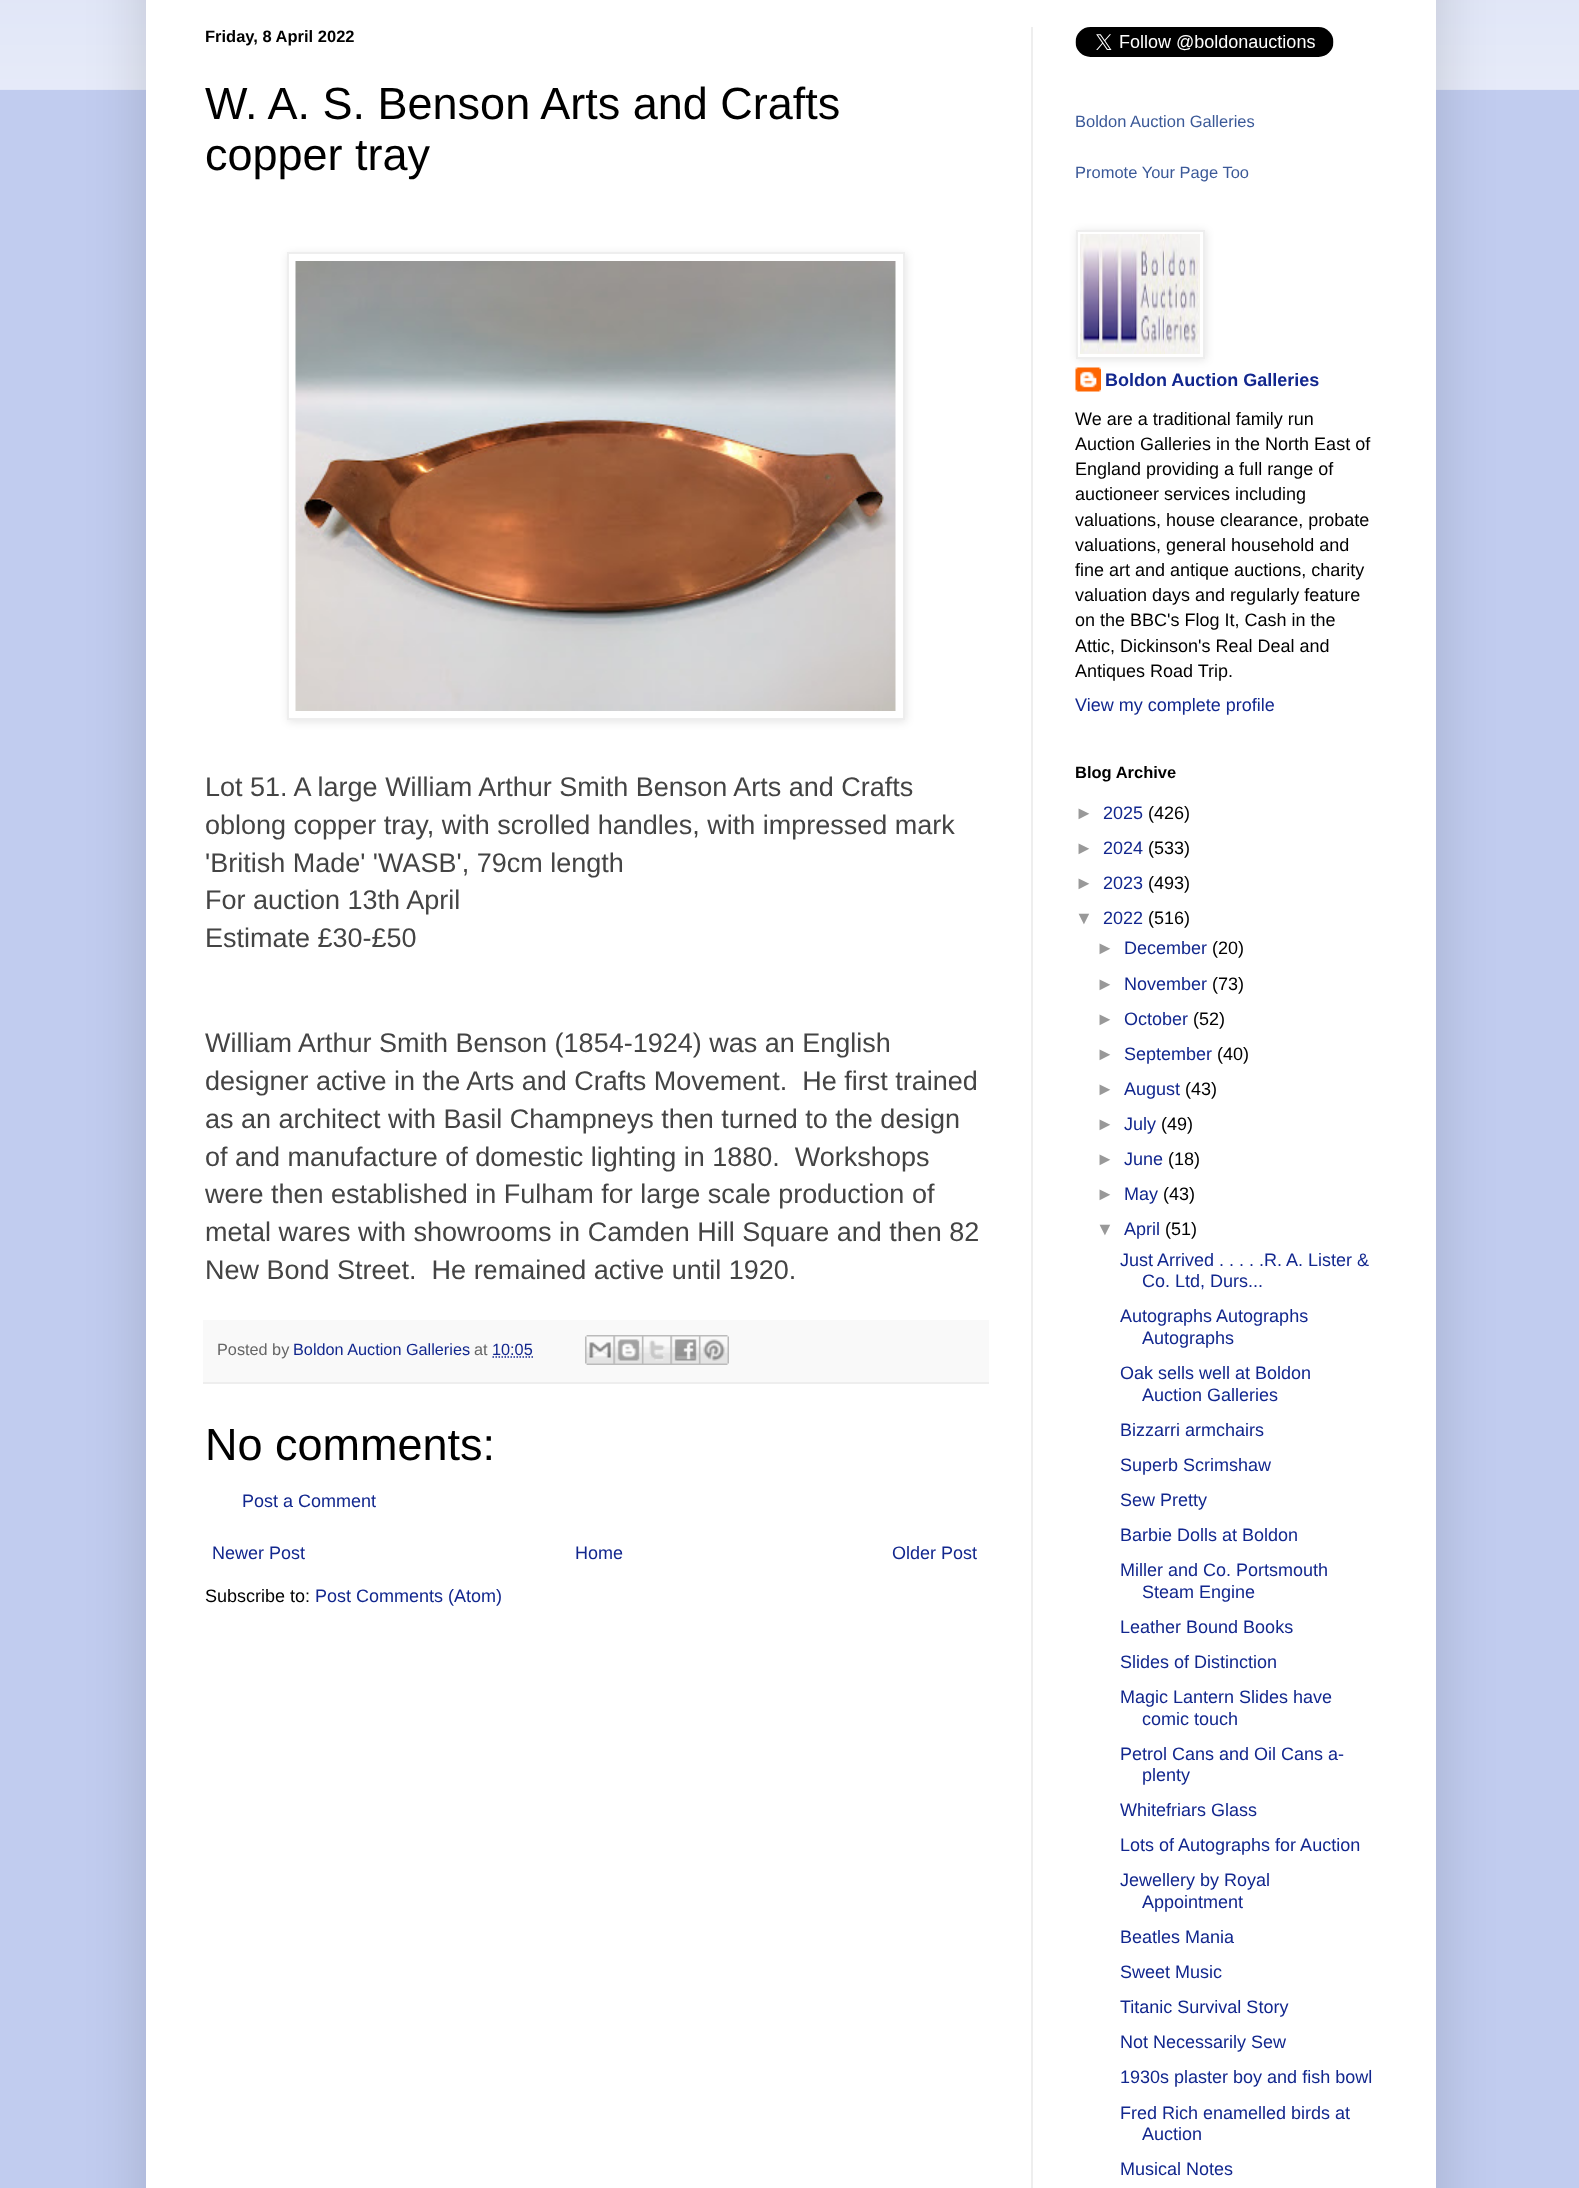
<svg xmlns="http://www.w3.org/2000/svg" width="1579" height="2188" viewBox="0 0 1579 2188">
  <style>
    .t1 { font: bold 16.5px Liberation Sans; fill: #000; }
    .t2 { font: 45px Liberation Sans; fill: #000; }
    .t3 { font: 27px Liberation Sans; fill: #444; }
    .t4 { font: 16.25px Liberation Sans; fill: #666; }
    .t5 { font: 16.25px Liberation Sans; fill: #12278e; }
    .t6 { font: 18px Liberation Sans; fill: #12278e; }
    .t7 { font: 18px Liberation Sans; fill: #000; }
    .t8 { font: 16.5px Liberation Sans; fill: #3b5998; }
    .t9 { font: bold 18px Liberation Sans; fill: #12278e; }
    .t10 { font: 18px Liberation Sans; fill: #999; }
  </style>
  <rect width="100%" height="100%" fill="#c1ccef"/>
  <image x="0" y="0" width="1579" height="90" href="images/1.png"/>
  <rect x="146" y="-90" width="1290" height="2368" fill="#00000026" filter="blur(30px)"/>
  <rect x="146" y="0" width="1290" height="2188" fill="#fff"/>
  <rect x="1031" y="27" width="2" height="2161" fill="#eee"/>
  <text x="205" y="42" class="t1">Friday, 8 April 2022</text>
  <text x="205" y="119" class="t2">W. A. S. Benson Arts and Crafts</text>
  <text x="205" y="170" class="t2">copper tray</text>
  <rect x="288" y="254" width="618" height="468" fill="#0000001a" filter="blur(4px)"/>
  <rect x="288" y="253" width="616" height="466" fill="#fff" stroke="#eee" stroke-width="2"/>
  <image x="295" y="261" width="601" height="450" href="images/2.png"/>
  <text x="205" y="796" class="t3">Lot 51. A large William Arthur Smith Benson Arts and Crafts</text>
  <text x="205" y="834" class="t3">oblong copper tray, with scrolled handles, with impressed mark</text>
  <text x="205" y="872" class="t3">'British Made' 'WASB', 79cm length</text>
  <text x="205" y="909" class="t3">For auction 13th April</text>
  <text x="205" y="947" class="t3">Estimate £30-£50</text>
  <text x="205" y="1052" class="t3">William Arthur Smith Benson (1854-1924) was an English</text>
  <text x="205" y="1090" class="t3" xml:space="preserve">designer active in the Arts and Crafts Movement.  He first trained</text>
  <text x="205" y="1128" class="t3">as an architect with Basil Champneys then turned to the design</text>
  <text x="205" y="1166" class="t3" xml:space="preserve">of and manufacture of domestic lighting in 1880.  Workshops</text>
  <text x="205" y="1203" class="t3">were then established in Fulham for large scale production of</text>
  <text x="205" y="1241" class="t3">metal wares with showrooms in Camden Hill Square and then 82</text>
  <text x="205" y="1279" class="t3" xml:space="preserve">New Bond Street.  He remained active until 1920.</text>
  <rect x="203" y="1320" width="786" height="62" fill="#f9f9f9"/>
  <rect x="203" y="1382" width="786" height="2" fill="#eee"/>
  <text x="217" y="1355" class="t4">Posted by</text>
  <text x="293" y="1355" class="t5">Boldon Auction Galleries</text>
  <text x="474" y="1355" class="t4">at</text>
  <text x="492" y="1355" class="t5">10:05</text>
  <path d="M492.5 1357H533" fill="none" stroke="#12278e" stroke-width="1.5" stroke-dasharray="1.5 1.5"/>
  <image x="585" y="1335" width="29" height="30" href="images/3.png"/>
  <image x="613" y="1335" width="29" height="30" href="images/4.png"/>
  <image x="642" y="1335" width="29" height="30" href="images/5.png"/>
  <image x="670" y="1335" width="29" height="30" href="images/6.png"/>
  <image x="699" y="1335" width="30" height="30" href="images/7.png"/>
  <text x="205" y="1460" class="t2">No comments:</text>
  <text x="242" y="1507" class="t6">Post a Comment</text>
  <text x="212" y="1559" class="t6">Newer Post</text>
  <text x="575" y="1559" class="t6">Home</text>
  <text x="892" y="1559" class="t6">Older Post</text>
  <text x="205" y="1602" class="t7">Subscribe to:</text>
  <text x="315" y="1602" class="t6">Post Comments (Atom)</text>
  <image x="1075" y="27" width="259" height="30" href="images/8.png"/>
  <text x="1075" y="127" class="t8">Boldon Auction Galleries</text>
  <text x="1075" y="178" class="t8">Promote Your Page Too</text>
  <image x="1075" y="367" width="26" height="25" href="images/10.png"/>
  <rect x="1077" y="231" width="129" height="129" fill="#0000001a" filter="blur(4px)"/>
  <rect x="1077" y="231" width="127" height="127" fill="#fff" stroke="#eee" stroke-width="2"/>
  <image x="1080" y="234" width="120" height="120" href="images/9.png"/>
  <text x="1105" y="386" class="t9">Boldon Auction Galleries</text>
  <text x="1075" y="425" class="t7">We are a traditional family run</text>
  <text x="1075" y="450" class="t7">Auction Galleries in the North East of</text>
  <text x="1075" y="475" class="t7">England providing a full range of</text>
  <text x="1075" y="500" class="t7">auctioneer services including</text>
  <text x="1075" y="526" class="t7">valuations, house clearance, probate</text>
  <text x="1075" y="551" class="t7">valuations, general household and</text>
  <text x="1075" y="576" class="t7">fine art and antique auctions, charity</text>
  <text x="1075" y="601" class="t7">valuation days and regularly feature</text>
  <text x="1075" y="626" class="t7">on the BBC's Flog It, Cash in the</text>
  <text x="1075" y="652" class="t7">Attic, Dickinson's Real Deal and</text>
  <text x="1075" y="677" class="t7">Antiques Road Trip.</text>
  <text x="1075" y="711" class="t6">View my complete profile</text>
  <text x="1075" y="778" class="t1">Blog Archive</text>
  <text x="1075" y="819" class="t10">►</text>
  <text x="1103" y="819" class="t6">2025</text>
  <text x="1148" y="819" class="t7">(426)</text>
  <text x="1075" y="854" class="t10">►</text>
  <text x="1103" y="854" class="t6">2024</text>
  <text x="1148" y="854" class="t7">(533)</text>
  <text x="1075" y="889" class="t10">►</text>
  <text x="1103" y="889" class="t6">2023</text>
  <text x="1148" y="889" class="t7">(493)</text>
  <text x="1075" y="924" class="t10">▼</text>
  <text x="1103" y="924" class="t6">2022</text>
  <text x="1148" y="924" class="t7">(516)</text>
  <text x="1096" y="954" class="t10">►</text>
  <text x="1124" y="954" class="t6">December</text>
  <text x="1212" y="954" class="t7">(20)</text>
  <text x="1096" y="990" class="t10">►</text>
  <text x="1124" y="990" class="t6">November</text>
  <text x="1212" y="990" class="t7">(73)</text>
  <text x="1096" y="1025" class="t10">►</text>
  <text x="1124" y="1025" class="t6">October</text>
  <text x="1193" y="1025" class="t7">(52)</text>
  <text x="1096" y="1060" class="t10">►</text>
  <text x="1124" y="1060" class="t6">September</text>
  <text x="1217" y="1060" class="t7">(40)</text>
  <text x="1096" y="1095" class="t10">►</text>
  <text x="1124" y="1095" class="t6">August</text>
  <text x="1185" y="1095" class="t7">(43)</text>
  <text x="1096" y="1130" class="t10">►</text>
  <text x="1124" y="1130" class="t6">July</text>
  <text x="1161" y="1130" class="t7">(49)</text>
  <text x="1096" y="1165" class="t10">►</text>
  <text x="1124" y="1165" class="t6">June</text>
  <text x="1168" y="1165" class="t7">(18)</text>
  <text x="1096" y="1200" class="t10">►</text>
  <text x="1124" y="1200" class="t6">May</text>
  <text x="1163" y="1200" class="t7">(43)</text>
  <text x="1096" y="1235" class="t10">▼</text>
  <text x="1124" y="1235" class="t6">April</text>
  <text x="1165" y="1235" class="t7">(51)</text>
  <text x="1120" y="1266" class="t6">Just Arrived . . . . .R. A. Lister &amp;</text>
  <text x="1142" y="1287" class="t6">Co. Ltd, Durs...</text>
  <text x="1120" y="1322" class="t6">Autographs Autographs</text>
  <text x="1142" y="1344" class="t6">Autographs</text>
  <text x="1120" y="1379" class="t6">Oak sells well at Boldon</text>
  <text x="1142" y="1401" class="t6">Auction Galleries</text>
  <text x="1120" y="1436" class="t6">Bizzarri armchairs</text>
  <text x="1120" y="1471" class="t6">Superb Scrimshaw</text>
  <text x="1120" y="1506" class="t6">Sew Pretty</text>
  <text x="1120" y="1541" class="t6">Barbie Dolls at Boldon</text>
  <text x="1120" y="1576" class="t6">Miller and Co. Portsmouth</text>
  <text x="1142" y="1598" class="t6">Steam Engine</text>
  <text x="1120" y="1633" class="t6">Leather Bound Books</text>
  <text x="1120" y="1668" class="t6">Slides of Distinction</text>
  <text x="1120" y="1703" class="t6">Magic Lantern Slides have</text>
  <text x="1142" y="1725" class="t6">comic touch</text>
  <text x="1120" y="1760" class="t6">Petrol Cans and Oil Cans a-</text>
  <text x="1142" y="1781" class="t6">plenty</text>
  <text x="1120" y="1816" class="t6">Whitefriars Glass</text>
  <text x="1120" y="1851" class="t6">Lots of Autographs for Auction</text>
  <text x="1120" y="1886" class="t6">Jewellery by Royal</text>
  <text x="1142" y="1908" class="t6">Appointment</text>
  <text x="1120" y="1943" class="t6">Beatles Mania</text>
  <text x="1120" y="1978" class="t6">Sweet Music</text>
  <text x="1120" y="2013" class="t6">Titanic Survival Story</text>
  <text x="1120" y="2048" class="t6">Not Necessarily Sew</text>
  <text x="1120" y="2083" class="t6">1930s plaster boy and fish bowl</text>
  <text x="1120" y="2119" class="t6">Fred Rich enamelled birds at</text>
  <text x="1142" y="2140" class="t6">Auction</text>
  <text x="1120" y="2175" class="t6">Musical Notes</text>
</svg>
